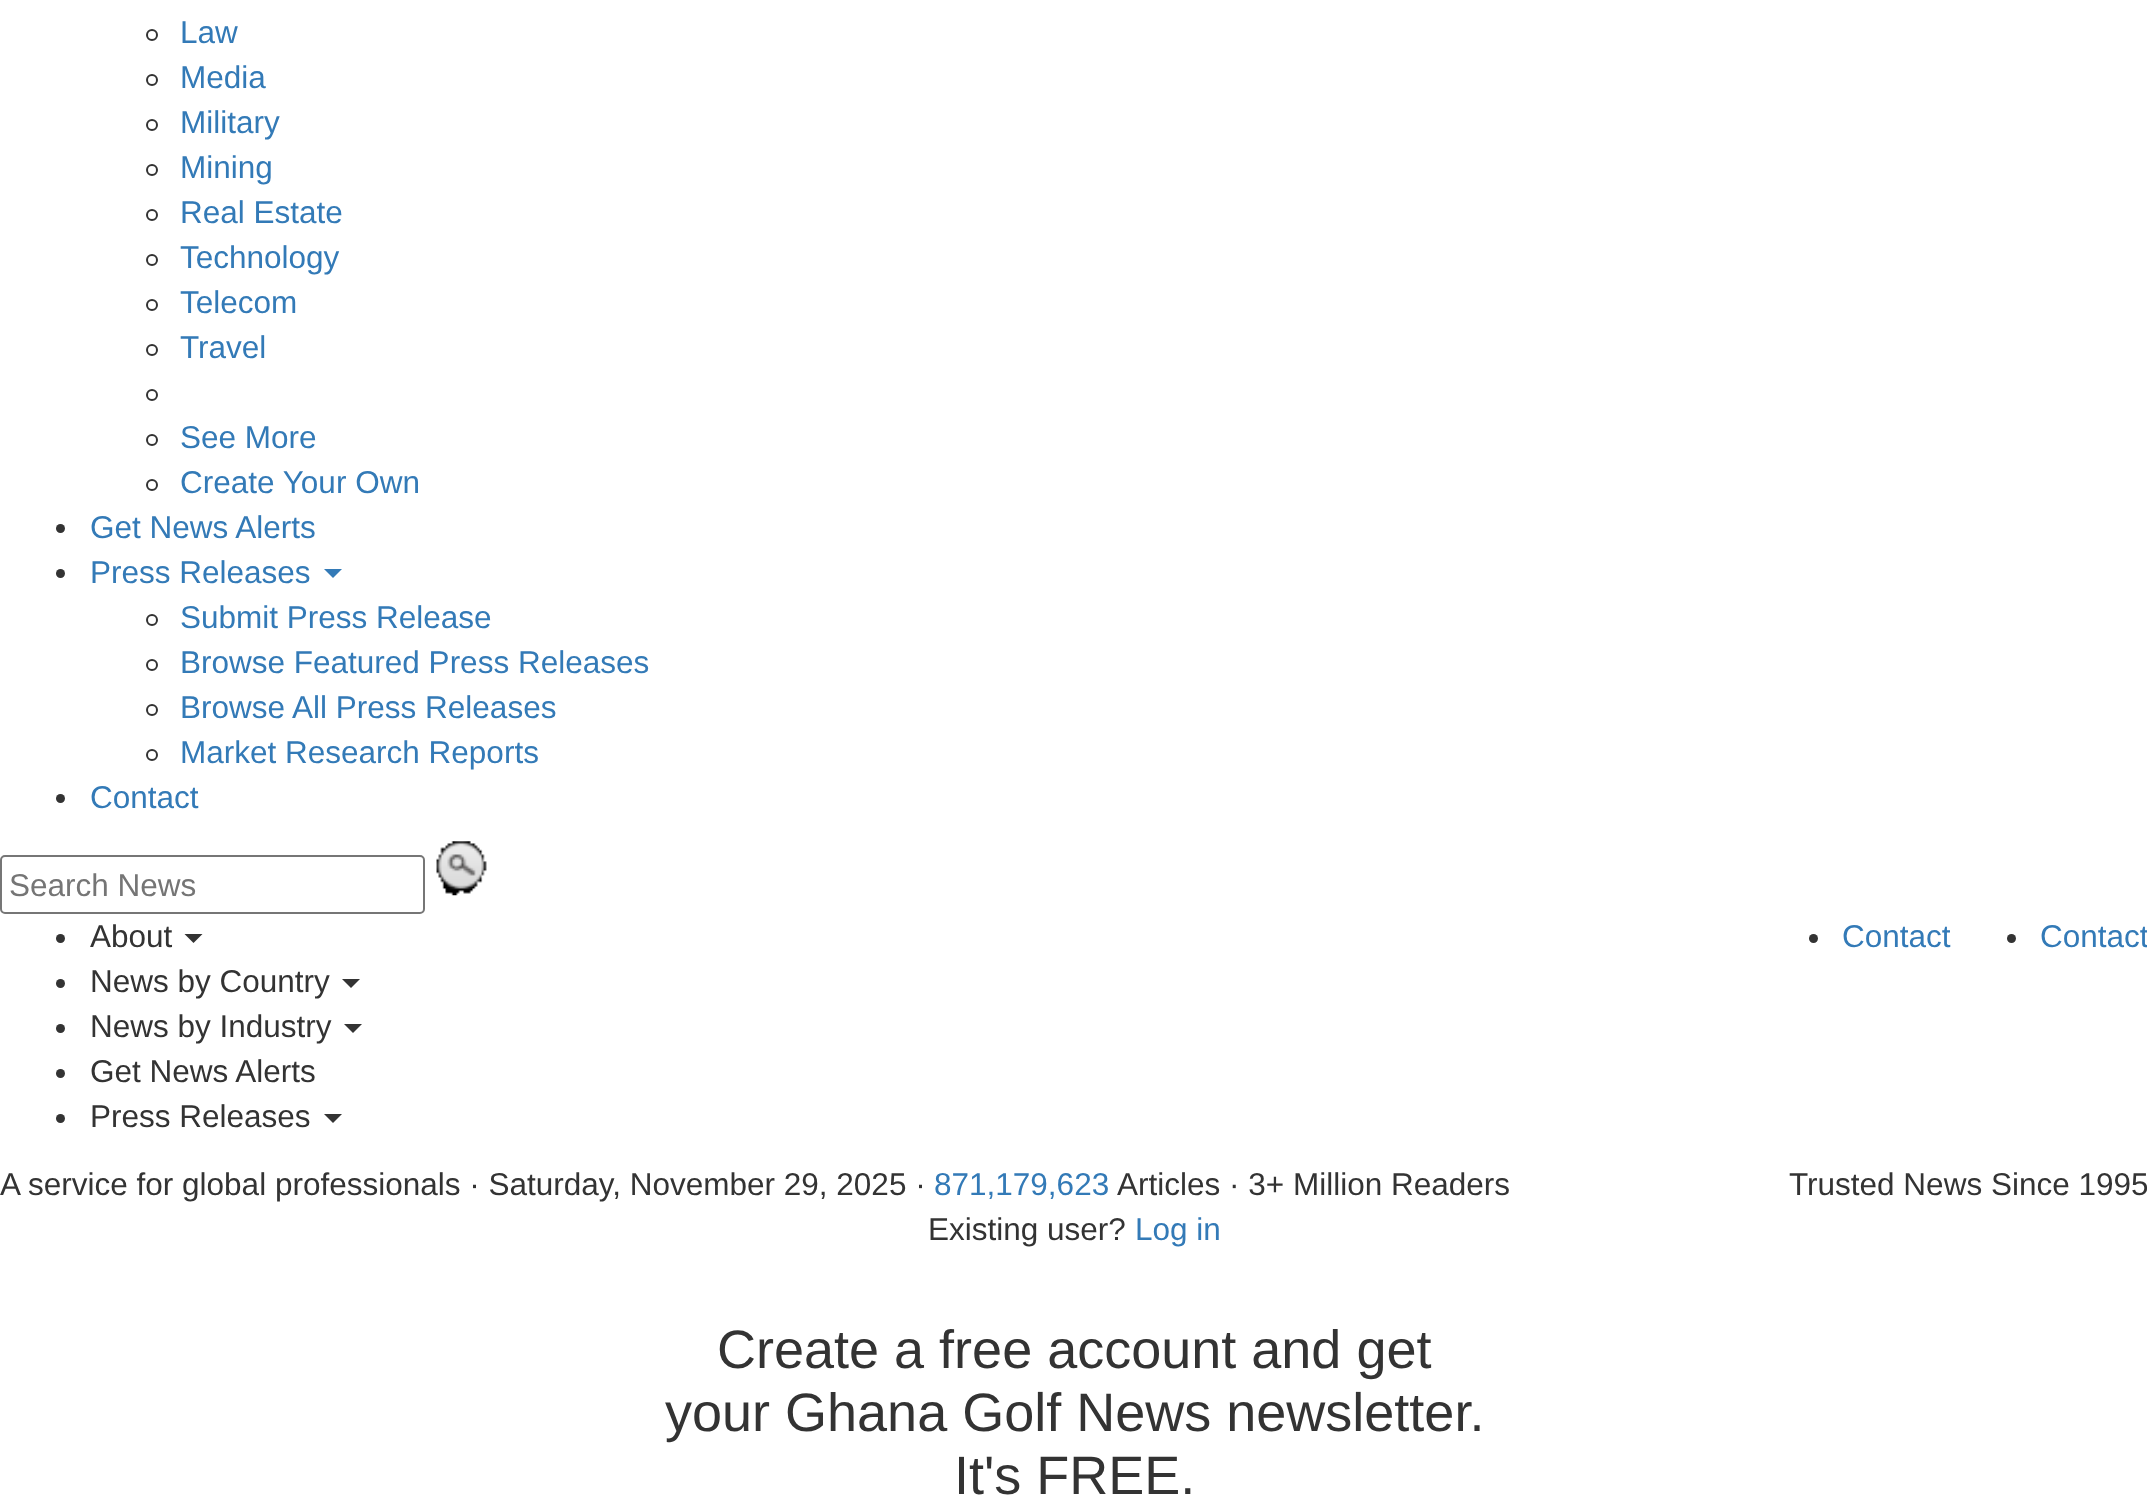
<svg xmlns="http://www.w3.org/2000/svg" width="2147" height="1511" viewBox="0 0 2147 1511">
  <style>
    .t1 { font: 31.5px Liberation Sans; fill: #337ab7; }
    .t2 { font: 31.5px Liberation Sans; fill: #757575; }
    .t3 { font: 31.5px Liberation Sans; fill: #333; }
    .t4 { font: 54px Liberation Sans; fill: #333; }
  </style>
  <rect width="100%" height="100%" fill="#fff"/>
  <circle cx="152" cy="35" r="5" fill="none" stroke="#333" stroke-width="2"/>
  <text x="180" y="43" class="t1">Law</text>
  <circle cx="152" cy="80" r="5" fill="none" stroke="#333" stroke-width="2"/>
  <text x="180" y="88" class="t1">Media</text>
  <circle cx="152" cy="125" r="5" fill="none" stroke="#333" stroke-width="2"/>
  <text x="180" y="133" class="t1">Military</text>
  <circle cx="152" cy="170" r="5" fill="none" stroke="#333" stroke-width="2"/>
  <text x="180" y="178" class="t1">Mining</text>
  <circle cx="152" cy="215" r="5" fill="none" stroke="#333" stroke-width="2"/>
  <text x="180" y="223" class="t1">Real Estate</text>
  <circle cx="152" cy="260" r="5" fill="none" stroke="#333" stroke-width="2"/>
  <text x="180" y="268" class="t1">Technology</text>
  <circle cx="152" cy="305" r="5" fill="none" stroke="#333" stroke-width="2"/>
  <text x="180" y="313" class="t1">Telecom</text>
  <circle cx="152" cy="350" r="5" fill="none" stroke="#333" stroke-width="2"/>
  <text x="180" y="358" class="t1">Travel</text>
  <circle cx="152" cy="395" r="5" fill="none" stroke="#333" stroke-width="2"/>
  <circle cx="152" cy="440" r="5" fill="none" stroke="#333" stroke-width="2"/>
  <text x="180" y="448" class="t1">See More</text>
  <circle cx="152" cy="485" r="5" fill="none" stroke="#333" stroke-width="2"/>
  <text x="180" y="493" class="t1">Create Your Own</text>
  <circle cx="60.5" cy="528.5" r="4.5" fill="#333"/>
  <text x="90" y="538" class="t1">Get News Alerts</text>
  <circle cx="60.5" cy="573.5" r="4.5" fill="#333"/>
  <text x="90" y="583" class="t1">Press Releases</text>
  <path d="M324 569H342L333 578Z" fill="#337ab7"/>
  <circle cx="152" cy="620" r="5" fill="none" stroke="#333" stroke-width="2"/>
  <text x="180" y="628" class="t1">Submit Press Release</text>
  <circle cx="152" cy="665" r="5" fill="none" stroke="#333" stroke-width="2"/>
  <text x="180" y="673" class="t1">Browse Featured Press Releases</text>
  <circle cx="152" cy="710" r="5" fill="none" stroke="#333" stroke-width="2"/>
  <text x="180" y="718" class="t1">Browse All Press Releases</text>
  <circle cx="152" cy="755" r="5" fill="none" stroke="#333" stroke-width="2"/>
  <text x="180" y="763" class="t1">Market Research Reports</text>
  <circle cx="60.5" cy="798.5" r="4.5" fill="#333"/>
  <text x="90" y="808" class="t1">Contact</text>
  <rect x="1" y="856" width="423" height="57" rx="4" fill="none" stroke="#767676" stroke-width="2"/>
  <text x="9" y="896" class="t2">Search News</text>
  <image x="436" y="841" width="51" height="55" href="images/1.png"/>
  <circle cx="1813.5" cy="938.5" r="4.5" fill="#333"/>
  <text x="1842" y="947" class="t1">Contact</text>
  <circle cx="2011.5" cy="938.5" r="4.5" fill="#333"/>
  <text x="2040" y="947" class="t1">Contact</text>
  <circle cx="60.5" cy="938.5" r="4.5" fill="#333"/>
  <text x="90" y="947" class="t3">About</text>
  <path d="M184.5 934H202.5L193.5 943Z" fill="#333"/>
  <circle cx="60.5" cy="983.5" r="4.5" fill="#333"/>
  <text x="90" y="992" class="t3">News by Country</text>
  <path d="M342 979H360L351 988Z" fill="#333"/>
  <circle cx="60.5" cy="1028.5" r="4.5" fill="#333"/>
  <text x="90" y="1037" class="t3">News by Industry</text>
  <path d="M344 1024H362L353 1033Z" fill="#333"/>
  <circle cx="60.5" cy="1073.5" r="4.5" fill="#333"/>
  <text x="90" y="1082" class="t3">Get News Alerts</text>
  <circle cx="60.5" cy="1118.5" r="4.5" fill="#333"/>
  <text x="90" y="1127" class="t3">Press Releases</text>
  <path d="M324 1114H342L333 1123Z" fill="#333"/>
  <text x="0" y="1195" class="t3">A service for global professionals · Saturday, November 29, 2025 ·</text>
  <text x="934" y="1195" class="t1">871,179,623</text>
  <text x="1117" y="1195" class="t3">Articles · 3+ Million Readers</text>
  <text x="1789" y="1195" class="t3">Trusted News Since 1995</text>
  <text x="928" y="1240" class="t3">Existing user?</text>
  <text x="1135" y="1240" class="t1">Log in</text>
  <text x="717" y="1368" class="t4">Create a free account and get</text>
  <text x="665" y="1431" class="t4">your Ghana Golf News newsletter.</text>
  <text x="954" y="1494" class="t4">It's FREE.</text>
</svg>
